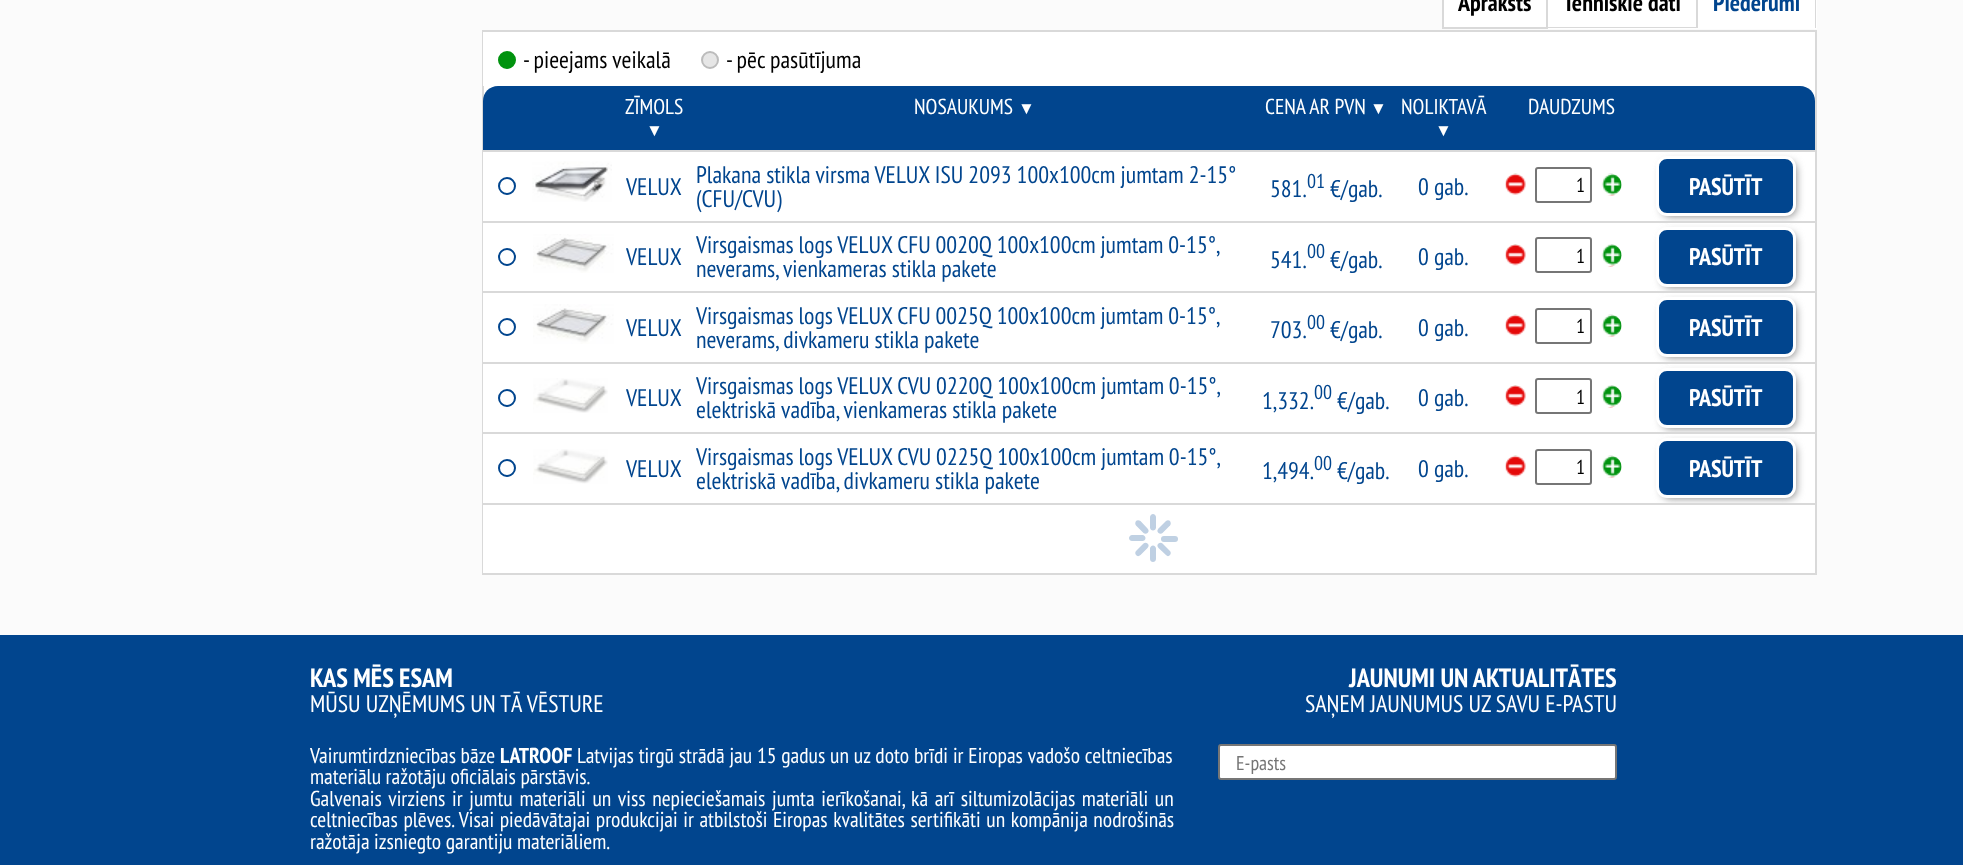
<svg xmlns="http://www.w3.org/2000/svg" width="1963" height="865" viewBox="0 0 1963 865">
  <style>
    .t1 { font: bold 24px PT Sans Narrow; fill: #000; }
    .t2 { font: bold 24px PT Sans Narrow; fill: #01458e; }
    .t3 { font: 24px PT Sans Narrow; fill: #000; }
    .t4 { font: 21.6px PT Sans Narrow; fill: #fff; }
    .t5 { font: 17px Liberation Serif; fill: #fff; }
    .t6 { font: 24px PT Sans Narrow; fill: #01458e; }
    .t7 { font: 20px PT Sans Narrow; fill: #01458e; }
    .t8 { font: 20px PT Sans Narrow; fill: #000; }
    .t9 { font: bold 24px PT Sans Narrow; fill: #fff; }
    .t10 { font: bold 26.4px PT Sans Narrow; fill: #fff; }
    .t11 { font: 24px PT Sans Narrow; fill: #fff; }
    .t12 { font: bold 21.6px PT Sans Narrow; fill: #fff; }
    .t13 { font: 20px PT Sans Narrow; fill: #757575; }
  </style>
  <rect width="100%" height="100%" fill="#fbfbfb"/>
  <rect x="1443" y="-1" width="104" height="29" fill="#fff" stroke="#d9d9d9" stroke-width="2"/>
  <text x="1458" y="11" class="t1">Apraksts</text>
  <rect x="1548" y="0" width="269" height="29" fill="#fff"/>
  <path d="M1556-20H1690C1695-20 1698-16 1698-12V28H1548V-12C1548-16 1551-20 1556-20ZM1556-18H1690C1694-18 1696-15 1696-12V27H1548V-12C1548-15 1551-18 1556-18Z" fill="#d9d9d9" fill-rule="evenodd"/>
  <text x="1563" y="11" class="t1">Tehniskie dati</text>
  <path d="M1706-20H1809C1813-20 1816-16 1816-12V28H1698V-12C1698-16 1701-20 1706-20ZM1706-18H1809C1812-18 1815-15 1815-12V28H1698V-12C1698-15 1701-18 1706-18Z" fill="#d9d9d9" fill-rule="evenodd"/>
  <text x="1713" y="11" class="t2">Piederumi</text>
  <rect x="484" y="86" width="1331" height="417" fill="#fff"/>
  <rect x="483" y="31" width="1333" height="543" fill="none" stroke="#d9d9d9" stroke-width="2"/>
  <rect x="483" y="32" width="1332" height="54" fill="#fff"/>
  <circle cx="507" cy="60" r="8" fill="#01930f" stroke="#01930f" stroke-width="2"/>
  <text x="523" y="68" class="t3">- pieejams veikalā</text>
  <circle cx="710" cy="60" r="8" fill="#e6e6e6" stroke="#bcbcbc" stroke-width="2"/>
  <text x="726" y="68" class="t3">- pēc pasūtījuma</text>
  <path d="M498 86H528V150H483V101C483 92.5 489.5 86 498 86Z" fill="#01458e"/>
  <rect x="528" y="86" width="1124" height="64" fill="#01458e"/>
  <path d="M1652 86H1800C1808.5 86 1815 92.5 1815 101V150H1652Z" fill="#01458e"/>
  <text x="625" y="114" class="t4">ZĪMOLS</text>
  <text x="646" y="136" class="t5">▼</text>
  <text x="914" y="114" class="t4">NOSAUKUMS</text>
  <text x="1018" y="114" class="t5">▼</text>
  <text x="1265" y="114" class="t4">CENA AR PVN</text>
  <text x="1370" y="114" class="t5">▼</text>
  <text x="1401" y="114" class="t4">NOLIKTAVĀ</text>
  <text x="1435" y="136" class="t5">▼</text>
  <text x="1528" y="114" class="t4">DAUDZUMS</text>
  <rect x="483" y="152" width="1" height="69" fill="#fff"/>
  <circle cx="507" cy="186" r="8" fill="none" stroke="#01458e" stroke-width="2"/>
  <image x="532" y="161" width="80" height="41" href="images/1.png"/>
  <text x="626" y="195" class="t6">VELUX</text>
  <text x="696" y="183" class="t6">Plakana stikla virsma VELUX ISU 2093 100x100cm jumtam 2-15°</text>
  <text x="696" y="207" class="t6">(CFU/CVU)</text>
  <text x="1270" y="197" class="t6">581.</text>
  <text x="1307" y="188" class="t7">01</text>
  <text x="1330" y="197" class="t6">€/gab.</text>
  <text x="1418" y="195" class="t6">0 gab.</text>
  <image x="1505" y="173" width="21" height="22" href="images/2.png"/>
  <rect x="1536" y="168" width="55" height="34" rx="2" fill="none" stroke="#767676" stroke-width="2"/>
  <text x="1576" y="192" class="t8">1</text>
  <image x="1601" y="173" width="21" height="23" href="images/3.png"/>
  <rect x="1662" y="162" width="134" height="54" rx="8" fill="#808080" filter="blur(4px)"/>
  <rect x="483" y="150" width="1332" height="2" fill="#d9d9d9"/>
  <rect x="1657.5" y="157.5" width="137" height="57" rx="9.5" fill="#01458e" stroke="#fff" stroke-width="3"/>
  <text x="1689" y="195" class="t9">PASŪTĪT</text>
  <rect x="483" y="223" width="1" height="68" fill="#fff"/>
  <circle cx="507" cy="257" r="8" fill="none" stroke="#01458e" stroke-width="2"/>
  <image x="533" y="234" width="81" height="39" href="images/4.png"/>
  <text x="626" y="265" class="t6">VELUX</text>
  <text x="696" y="253" word-spacing="-0.25" class="t6">Virsgaismas logs VELUX CFU 0020Q 100x100cm jumtam 0-15°,</text>
  <text x="696" y="277" class="t6">neverams, vienkameras stikla pakete</text>
  <text x="1270" y="268" class="t6">541.</text>
  <text x="1307" y="258" class="t7">00</text>
  <text x="1330" y="268" class="t6">€/gab.</text>
  <text x="1418" y="265" class="t6">0 gab.</text>
  <image x="1505" y="244" width="21" height="22" href="images/5.png"/>
  <rect x="1536" y="238" width="55" height="34" rx="2" fill="none" stroke="#767676" stroke-width="2"/>
  <text x="1576" y="263" class="t8">1</text>
  <image x="1601" y="244" width="21" height="23" href="images/6.png"/>
  <rect x="1668" y="223" width="122" height="1" fill="#fff"/>
  <rect x="1662" y="233" width="134" height="54" rx="8" fill="#808080" filter="blur(4px)"/>
  <rect x="483" y="221" width="1332" height="2" fill="#d9d9d9"/>
  <rect x="1657.5" y="228.5" width="137" height="57" rx="9.5" fill="#01458e" stroke="#fff" stroke-width="3"/>
  <text x="1689" y="265" class="t9">PASŪTĪT</text>
  <rect x="483" y="293" width="1" height="69" fill="#fff"/>
  <circle cx="507" cy="327" r="8" fill="none" stroke="#01458e" stroke-width="2"/>
  <image x="533" y="304" width="81" height="40" href="images/7.png"/>
  <text x="626" y="336" class="t6">VELUX</text>
  <text x="696" y="324" word-spacing="-0.25" class="t6">Virsgaismas logs VELUX CFU 0025Q 100x100cm jumtam 0-15°,</text>
  <text x="696" y="348" class="t6">neverams, divkameru stikla pakete</text>
  <text x="1270" y="338" class="t6">703.</text>
  <text x="1307" y="329" class="t7">00</text>
  <text x="1330" y="338" class="t6">€/gab.</text>
  <text x="1418" y="336" class="t6">0 gab.</text>
  <image x="1505" y="314" width="21" height="22" href="images/2.png"/>
  <rect x="1536" y="309" width="55" height="34" rx="2" fill="none" stroke="#767676" stroke-width="2"/>
  <text x="1576" y="333" class="t8">1</text>
  <image x="1601" y="314" width="21" height="23" href="images/3.png"/>
  <rect x="1664" y="293" width="130" height="2" fill="#fff"/>
  <rect x="1662" y="303" width="134" height="54" rx="8" fill="#808080" filter="blur(4px)"/>
  <rect x="483" y="291" width="1332" height="2" fill="#d9d9d9"/>
  <rect x="1657.5" y="298.5" width="137" height="57" rx="9.5" fill="#01458e" stroke="#fff" stroke-width="3"/>
  <text x="1689" y="336" class="t9">PASŪTĪT</text>
  <rect x="483" y="364" width="1" height="68" fill="#fff"/>
  <circle cx="507" cy="398" r="8" fill="none" stroke="#01458e" stroke-width="2"/>
  <image x="533" y="378" width="75" height="35" href="images/8.png"/>
  <text x="626" y="406" class="t6">VELUX</text>
  <text x="696" y="394" word-spacing="-0.25" class="t6">Virsgaismas logs VELUX CVU 0220Q 100x100cm jumtam 0-15°,</text>
  <text x="696" y="418" class="t6">elektriskā vadība, vienkameras stikla pakete</text>
  <text x="1262" y="409" class="t6">1,332.</text>
  <text x="1314" y="399" class="t7">00</text>
  <text x="1337" y="409" class="t6">€/gab.</text>
  <text x="1418" y="406" class="t6">0 gab.</text>
  <image x="1505" y="385" width="21" height="22" href="images/9.png"/>
  <rect x="1536" y="379" width="55" height="34" rx="2" fill="none" stroke="#767676" stroke-width="2"/>
  <text x="1576" y="404" class="t8">1</text>
  <image x="1601" y="385" width="21" height="23" href="images/10.png"/>
  <rect x="1668" y="364" width="122" height="1" fill="#fff"/>
  <rect x="1662" y="374" width="134" height="54" rx="8" fill="#808080" filter="blur(4px)"/>
  <rect x="483" y="362" width="1332" height="2" fill="#d9d9d9"/>
  <rect x="1657.5" y="369.5" width="137" height="57" rx="9.5" fill="#01458e" stroke="#fff" stroke-width="3"/>
  <text x="1689" y="406" class="t9">PASŪTĪT</text>
  <rect x="483" y="434" width="1" height="69" fill="#fff"/>
  <circle cx="507" cy="468" r="8" fill="none" stroke="#01458e" stroke-width="2"/>
  <image x="533" y="449" width="75" height="35" href="images/11.png"/>
  <text x="626" y="477" class="t6">VELUX</text>
  <text x="696" y="465" word-spacing="-0.25" class="t6">Virsgaismas logs VELUX CVU 0225Q 100x100cm jumtam 0-15°,</text>
  <text x="696" y="489" class="t6">elektriskā vadība, divkameru stikla pakete</text>
  <text x="1262" y="479" class="t6">1,494.</text>
  <text x="1314" y="470" class="t7">00</text>
  <text x="1337" y="479" class="t6">€/gab.</text>
  <text x="1418" y="477" class="t6">0 gab.</text>
  <image x="1505" y="455" width="21" height="22" href="images/12.png"/>
  <rect x="1536" y="450" width="55" height="34" rx="2" fill="none" stroke="#767676" stroke-width="2"/>
  <text x="1576" y="474" class="t8">1</text>
  <image x="1601" y="455" width="21" height="23" href="images/13.png"/>
  <rect x="1664" y="434" width="130" height="2" fill="#fff"/>
  <rect x="1662" y="444" width="134" height="54" rx="8" fill="#808080" filter="blur(4px)"/>
  <rect x="483" y="432" width="1332" height="2" fill="#d9d9d9"/>
  <rect x="1657.5" y="439.5" width="137" height="57" rx="9.5" fill="#01458e" stroke="#fff" stroke-width="3"/>
  <text x="1689" y="477" class="t9">PASŪTĪT</text>
  <rect x="483" y="505" width="1332" height="68" fill="#fff"/>
  <rect x="483" y="503" width="1332" height="2" fill="#d9d9d9"/>
  <path d="M1143.5 533L1136 525.5C1135 524.5 1135 522.5 1136 521C1137 520 1139 520 1140.5 521L1147.5 528.5C1149 530 1149 531.5 1147.5 533C1146.5 534 1144.5 534 1143.5 533Z" fill="#bfd0e3"/>
  <path d="M1150 527.5V517C1150 515.5 1151.5 514 1153 514C1154.5 514 1156 515.5 1156 517V527.5C1156 529.5 1154.5 530.5 1153 530.5C1151.5 530.5 1150 529.5 1150 527.5Z" fill="#01458e40"/>
  <path d="M1158.5 528.5L1166 521C1167 520 1169 520 1170 521C1171 522.5 1171 524.5 1170 525.5L1162.5 533C1161.5 534 1159.5 534 1158.5 533C1157 531.5 1157 530 1158.5 528.5Z" fill="#bfd0e3"/>
  <path d="M1142.5 541H1132C1130.5 541 1129 540 1129 538C1129 536.5 1130.5 535 1132 535H1142.5C1144 535 1145.5 536.5 1145.5 538C1145.5 540 1144 541 1142.5 541Z" fill="#c0d1e3"/>
  <rect x="1161" y="536" width="17" height="6" rx="3" fill="#c0d1e3"/>
  <path d="M1162.5 543.5L1170 551C1171 552 1171 554 1170 555C1169 556.5 1167 556.5 1166 555L1158.5 548C1157 546.5 1157 544.5 1158.5 543.5C1159.5 542.5 1161.5 542.5 1162.5 543.5ZM1156 548.5V559C1156 561 1154.5 562 1153 562C1151.5 562 1150 561 1150 559V548.5C1150 547 1151.5 545.5 1153 545.5C1154.5 545.5 1156 547 1156 548.5ZM1147.5 548L1140.5 555C1139 556.5 1137 556.5 1136 555C1135 554 1135 552 1136 551L1143.5 543.5C1144.5 542.5 1146.5 542.5 1147.5 543.5C1149 544.5 1149 546.5 1147.5 548Z" fill="#bfd0e3"/>
  <rect x="0" y="635" width="1963" height="230" fill="#01458e"/>
  <text x="310" y="687" class="t10">KAS MĒS ESAM</text>
  <text x="310" y="712" class="t11">MŪSU UZŅĒMUMS UN TĀ VĒSTURE</text>
  <text x="310" y="763" class="t4">Vairumtirdzniecības bāze</text>
  <text x="500" y="763" class="t12">LATROOF</text>
  <text x="577" y="763" word-spacing="0.3" class="t4">Latvijas tirgū strādā jau 15 gadus un uz doto brīdi ir Eiropas vadošo celtniecības</text>
  <text x="310" y="784" class="t4">materiālu ražotāju oficiālais pārstāvis.</text>
  <text x="310" y="806" word-spacing="2.1" class="t4">Galvenais virziens ir jumtu materiāli un viss nepieciešamais jumta ierīkošanai, kā arī siltumizolācijas materiāli un</text>
  <text x="310" y="827" word-spacing="1" class="t4">celtniecības plēves. Visai piedāvātajai produkcijai ir atbilstoši Eiropas kvalitātes sertifikāti un kompānija nodrošinās</text>
  <text x="310" y="849" class="t4">ražotāja izsniegto garantiju materiāliem.</text>
  <text x="1349" y="687" class="t10">JAUNUMI UN AKTUALITĀTES</text>
  <text x="1305" y="712" class="t11">SAŅEM JAUNUMUS UZ SAVU E-PASTU</text>
  <rect x="1219" y="745" width="397" height="34" rx="2" fill="#fff" stroke="#767676" stroke-width="2"/>
  <text x="1236" y="770" class="t13">E-pasts</text>
</svg>
